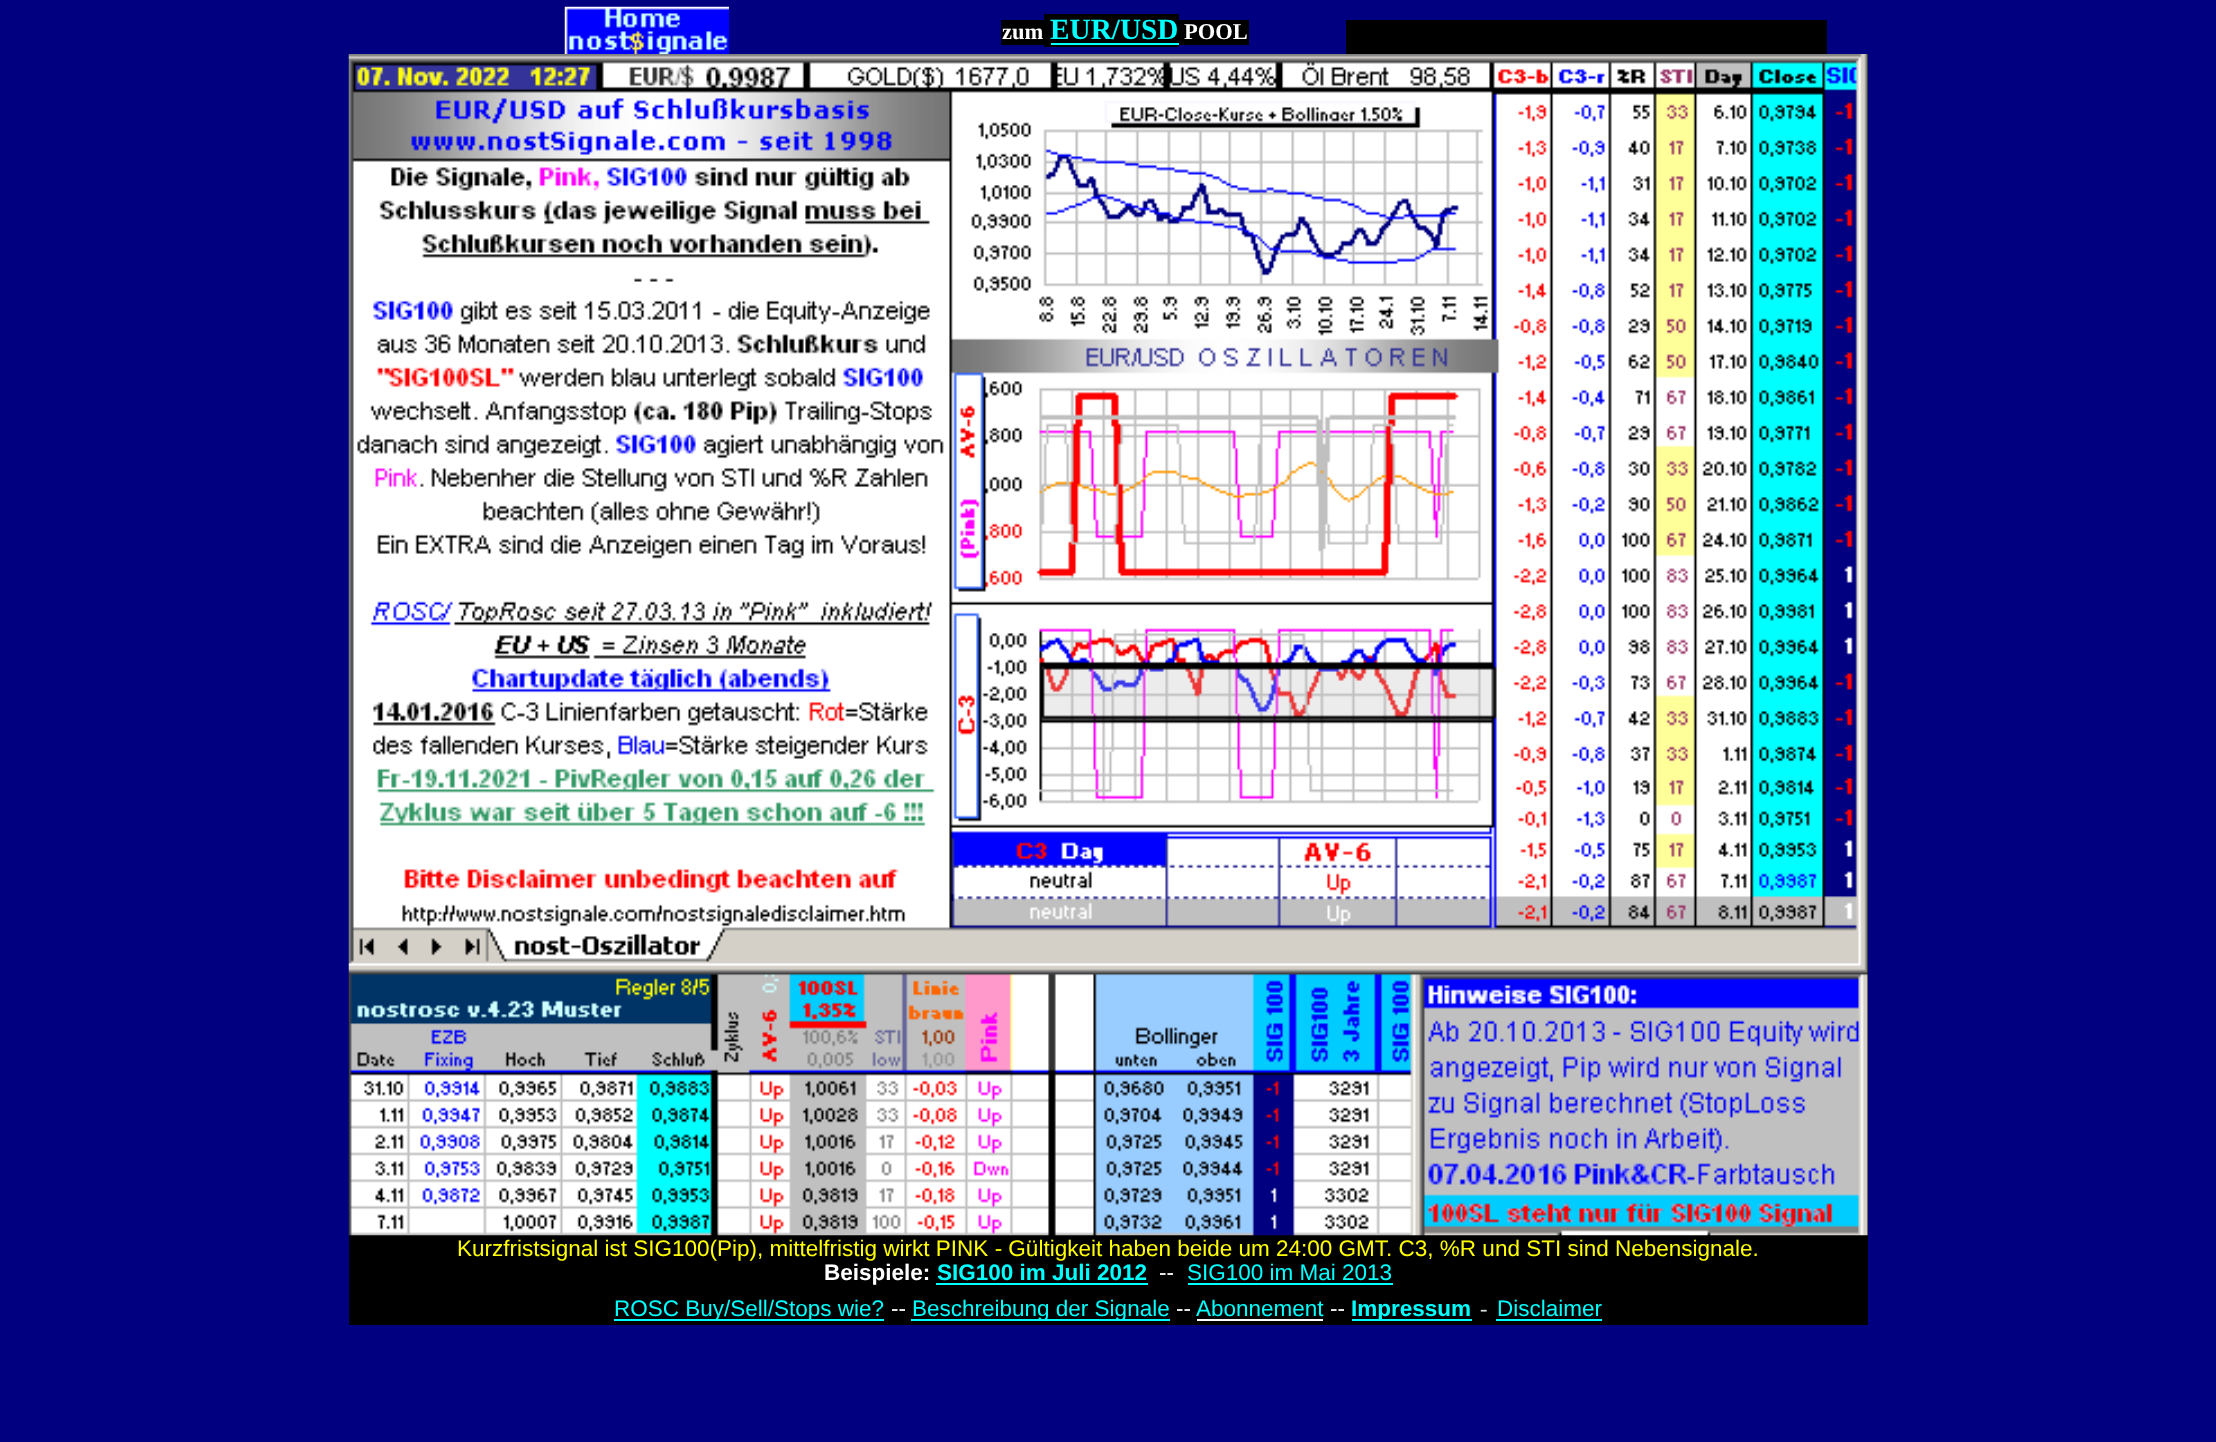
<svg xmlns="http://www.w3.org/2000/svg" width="2216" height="1442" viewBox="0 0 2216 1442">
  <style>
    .t1 { font: bold 22.5px Liberation Serif; fill: #fff; }
    .t2 { font: bold 29.25px Liberation Serif; fill: #0ff; }
    .t3 { font: 22.5px Liberation Sans; fill: #ff0; }
    .t4 { font: bold 22.5px Liberation Sans; fill: #fff; }
    .t5 { font: bold 22.5px Liberation Sans; fill: #0ff; }
    .t6 { font: 22.5px Liberation Sans; fill: #fff; }
    .t7 { font: 22.5px Liberation Sans; fill: #0ff; }
    .t8 { font: 22.5px Liberation Serif; fill: #d9dee1; }
  </style>
  <rect width="100%" height="100%" fill="#000080"/>
  <image x="564" y="6" width="165" height="48" href="images/1.png"/>
  <rect x="1001" y="20" width="43" height="25" fill="#000"/>
  <text x="1002" y="39" class="t1">zum</text>
  <rect x="1044" y="14" width="135" height="33" fill="#000"/>
  <rect x="1051" y="43" width="128" height="2" fill="#0ff"/>
  <text x="1050" y="39" class="t2">EUR/USD</text>
  <rect x="1179" y="20" width="70" height="25" fill="#000"/>
  <text x="1184" y="39" class="t1">POOL</text>
  <rect x="1346" y="20" width="481" height="34" fill="#000"/>
  <rect x="349" y="54" width="1519" height="1271" fill="#000"/>
  <image x="348" y="54" width="1520" height="1182" href="images/2.png"/>
  <text x="457" y="1256" class="t3">Kurzfristsignal ist SIG100(Pip), mittelfristig wirkt PINK - Gültigkeit haben beide um 24:00 GMT. C3, %R und STI sind Nebensignale.</text>
  <text x="824" y="1280" class="t4">Beispiele:</text>
  <text x="937" y="1280" class="t5">SIG100 im Juli 2012</text>
  <rect x="936" y="1283" width="212" height="2" fill="#0ff"/>
  <text x="1159" y="1280" class="t6">--</text>
  <text x="1187" y="1280" class="t7">SIG100 im Mai 2013</text>
  <rect x="1188" y="1283" width="205" height="2" fill="#0ff"/>
  <rect x="614" y="1319" width="270" height="2" fill="#0ff"/>
  <text x="614" y="1316" class="t7">ROSC Buy/Sell/Stops wie?</text>
  <text x="891" y="1316" class="t6">--</text>
  <rect x="911" y="1319" width="259" height="2" fill="#0ff"/>
  <text x="912" y="1316" class="t7">Beschreibung der Signale</text>
  <text x="1176" y="1316" class="t6">--</text>
  <text x="1196" y="1316" class="t7">Abonnement</text>
  <rect x="1197" y="1319" width="126" height="2" fill="#fff"/>
  <text x="1330" y="1316" class="t6">--</text>
  <rect x="1352" y="1319" width="120" height="2" fill="#0ff"/>
  <text x="1351" y="1316" class="t5">Impressum</text>
  <text x="1480" y="1316" class="t8">-</text>
  <text x="1497" y="1316" class="t7">Disclaimer</text>
  <rect x="1496" y="1319" width="106" height="2" fill="#0ff"/>
</svg>
